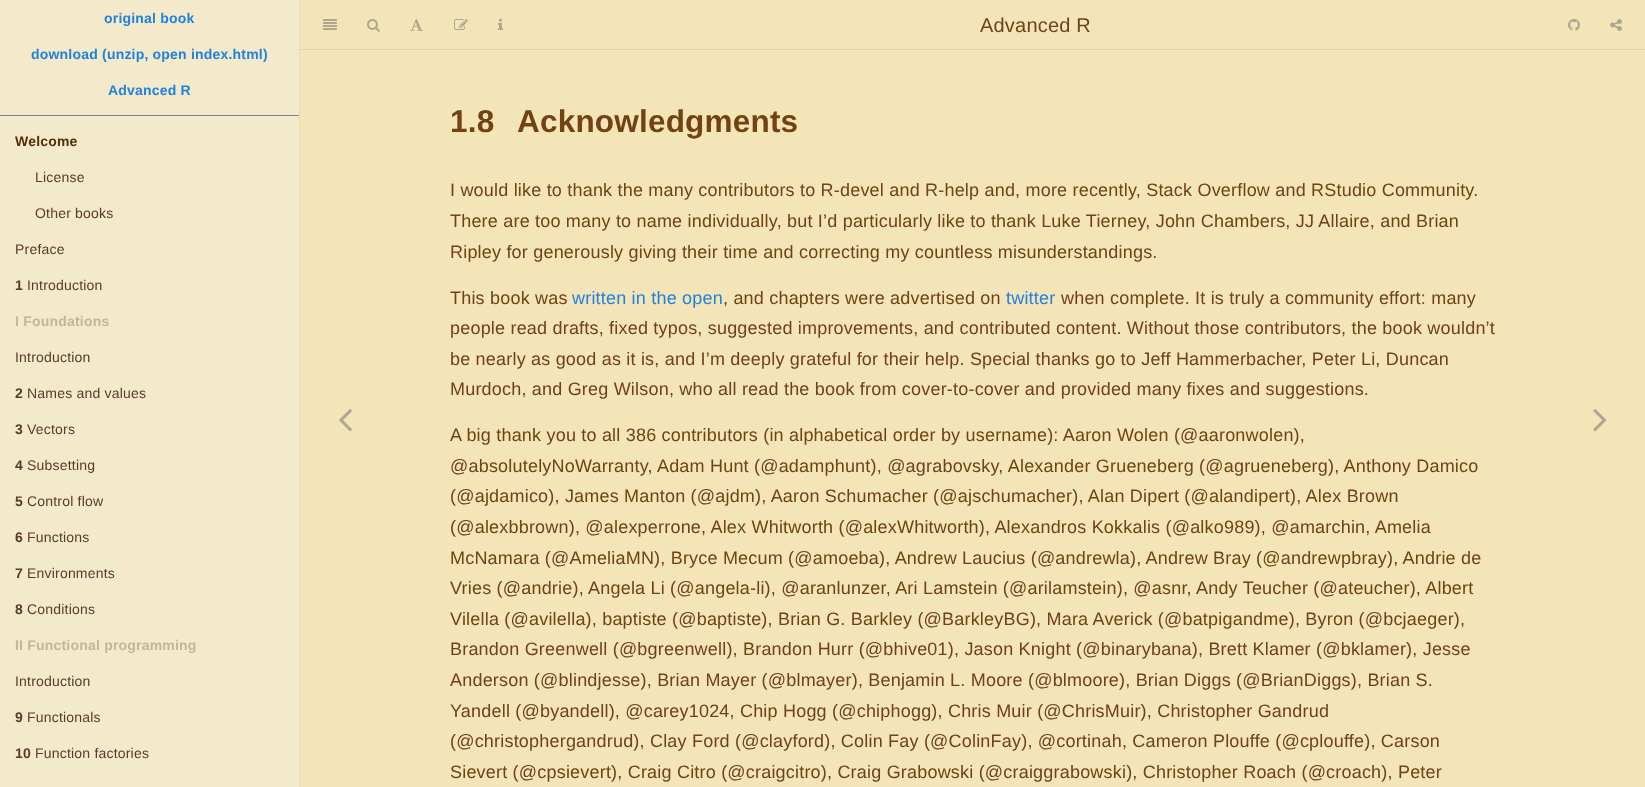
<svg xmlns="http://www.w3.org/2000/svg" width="1645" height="787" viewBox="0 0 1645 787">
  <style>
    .t1 { font: bold 14px Liberation Sans; letter-spacing: 0.2px; fill: #2182dd; }
    .t2 { font: bold 14px Liberation Sans; letter-spacing: 0.2px; fill: #552f08; }
    .t3 { font: 14px Liberation Sans; letter-spacing: 0.2px; fill: #5a3c1f; }
    .t4 { font: bold 14px Liberation Sans; letter-spacing: 0.2px; fill: #5a3c1f; }
    .t5 { font: bold 14px Liberation Sans; letter-spacing: 0.2px; fill: #c5b697; }
    .t6 { font: 20px Liberation Sans; letter-spacing: 0.2px; fill: #704214; }
    .t7 { font: bold 31.5px Liberation Sans; letter-spacing: 0.2px; fill: #704214; }
    .t8 { font: 18px Liberation Sans; letter-spacing: 0.2px; fill: #704214; }
    .t9 { font: 18px Liberation Sans; letter-spacing: 0.2px; fill: #2182dd; }
  </style>
  <rect width="100%" height="100%" fill="#f3e5b7"/>
  <rect x="0" y="0" width="299" height="787" fill="#f3eacb"/>
  <rect x="299" y="0" width="1" height="787" fill="#e2dabd"/>
  <text x="104" y="23" class="t1">original book</text>
  <text x="31" y="59" class="t1">download (unzip, open index.html)</text>
  <text x="108" y="95" class="t1">Advanced R</text>
  <rect x="0" y="115" width="299" height="1" fill="#7e888b"/>
  <text x="15" y="146" class="t2">Welcome</text>
  <text x="35" y="182" class="t3">License</text>
  <text x="35" y="218" class="t3">Other books</text>
  <text x="15" y="254" class="t3">Preface</text>
  <text x="15" y="290" class="t4">1</text>
  <text x="27" y="290" class="t3">Introduction</text>
  <text x="15" y="326" class="t5">I Foundations</text>
  <text x="15" y="362" class="t3">Introduction</text>
  <text x="15" y="398" class="t4">2</text>
  <text x="27" y="398" class="t3">Names and values</text>
  <text x="15" y="434" class="t4">3</text>
  <text x="27" y="434" class="t3">Vectors</text>
  <text x="15" y="470" class="t4">4</text>
  <text x="27" y="470" class="t3">Subsetting</text>
  <text x="15" y="506" class="t4">5</text>
  <text x="27" y="506" class="t3">Control flow</text>
  <text x="15" y="542" class="t4">6</text>
  <text x="27" y="542" class="t3">Functions</text>
  <text x="15" y="578" class="t4">7</text>
  <text x="27" y="578" class="t3">Environments</text>
  <text x="15" y="614" class="t4">8</text>
  <text x="27" y="614" class="t3">Conditions</text>
  <text x="15" y="650" class="t5">II Functional programming</text>
  <text x="15" y="686" class="t3">Introduction</text>
  <text x="15" y="722" class="t4">9</text>
  <text x="27" y="722" class="t3">Functionals</text>
  <text x="15" y="758" class="t4">10</text>
  <text x="35" y="758" class="t3">Function factories</text>
  <image x="339" y="409" width="13" height="23" href="images/1.png"/>
  <rect x="300" y="49" width="1345" height="1" fill="#e2d5aa"/>
  <image x="323" y="19" width="14" height="11" href="images/2.png"/>
  <image x="367" y="19" width="13" height="13" href="images/3.png"/>
  <image x="410" y="19" width="13" height="12" href="images/4.png"/>
  <image x="454" y="19" width="14" height="11" href="images/5.png"/>
  <image x="498" y="19" width="5" height="11" href="images/6.png"/>
  <text x="980" y="32" class="t6">Advanced R</text>
  <image x="1568" y="19" width="12" height="12" href="images/7.png"/>
  <image x="1610" y="19" width="12" height="12" href="images/8.png"/>
  <text x="450" y="132" class="t7">1.8</text>
  <text x="517" y="132" class="t7">Acknowledgments</text>
  <text x="450" y="196" class="t8">I would like to thank the many contributors to R-devel and R-help and, more recently, Stack Overflow and RStudio Community.</text>
  <text x="450" y="227" class="t8">There are too many to name individually, but I’d particularly like to thank Luke Tierney, John Chambers, JJ Allaire, and Brian</text>
  <text x="450" y="258" class="t8">Ripley for generously giving their time and correcting my countless misunderstandings.</text>
  <text x="450" y="304" class="t8">This book was</text>
  <text x="572" y="304" class="t9">written in the open</text>
  <text x="723" y="304" class="t8">, and chapters were advertised on</text>
  <text x="1006" y="304" class="t9">twitter</text>
  <text x="1061" y="304" class="t8">when complete. It is truly a community effort: many</text>
  <text x="450" y="334" class="t8">people read drafts, fixed typos, suggested improvements, and contributed content. Without those contributors, the book wouldn’t</text>
  <text x="450" y="365" class="t8">be nearly as good as it is, and I’m deeply grateful for their help. Special thanks go to Jeff Hammerbacher, Peter Li, Duncan</text>
  <text x="450" y="395" class="t8">Murdoch, and Greg Wilson, who all read the book from cover-to-cover and provided many fixes and suggestions.</text>
  <text x="450" y="441" class="t8">A big thank you to all 386 contributors (in alphabetical order by username): Aaron Wolen (@aaronwolen),</text>
  <text x="450" y="472" class="t8">@absolutelyNoWarranty, Adam Hunt (@adamphunt), @agrabovsky, Alexander Grueneberg (@agrueneberg), Anthony Damico</text>
  <text x="450" y="502" class="t8">(@ajdamico), James Manton (@ajdm), Aaron Schumacher (@ajschumacher), Alan Dipert (@alandipert), Alex Brown</text>
  <text x="450" y="533" class="t8">(@alexbbrown), @alexperrone, Alex Whitworth (@alexWhitworth), Alexandros Kokkalis (@alko989), @amarchin, Amelia</text>
  <text x="450" y="564" class="t8">McNamara (@AmeliaMN), Bryce Mecum (@amoeba), Andrew Laucius (@andrewla), Andrew Bray (@andrewpbray), Andrie de</text>
  <text x="450" y="594" class="t8">Vries (@andrie), Angela Li (@angela-li), @aranlunzer, Ari Lamstein (@arilamstein), @asnr, Andy Teucher (@ateucher), Albert</text>
  <text x="450" y="625" class="t8">Vilella (@avilella), baptiste (@baptiste), Brian G. Barkley (@BarkleyBG), Mara Averick (@batpigandme), Byron (@bcjaeger),</text>
  <text x="450" y="655" class="t8">Brandon Greenwell (@bgreenwell), Brandon Hurr (@bhive01), Jason Knight (@binarybana), Brett Klamer (@bklamer), Jesse</text>
  <text x="450" y="686" class="t8">Anderson (@blindjesse), Brian Mayer (@blmayer), Benjamin L. Moore (@blmoore), Brian Diggs (@BrianDiggs), Brian S.</text>
  <text x="450" y="717" class="t8">Yandell (@byandell), @carey1024, Chip Hogg (@chiphogg), Chris Muir (@ChrisMuir), Christopher Gandrud</text>
  <text x="450" y="747" class="t8">(@christophergandrud), Clay Ford (@clayford), Colin Fay (@ColinFay), @cortinah, Cameron Plouffe (@cplouffe), Carson</text>
  <text x="450" y="778" class="t8">Sievert (@cpsievert), Craig Citro (@craigcitro), Craig Grabowski (@craiggrabowski), Christopher Roach (@croach), Peter</text>
  <image x="1593" y="409" width="14" height="23" href="images/9.png"/>
</svg>
